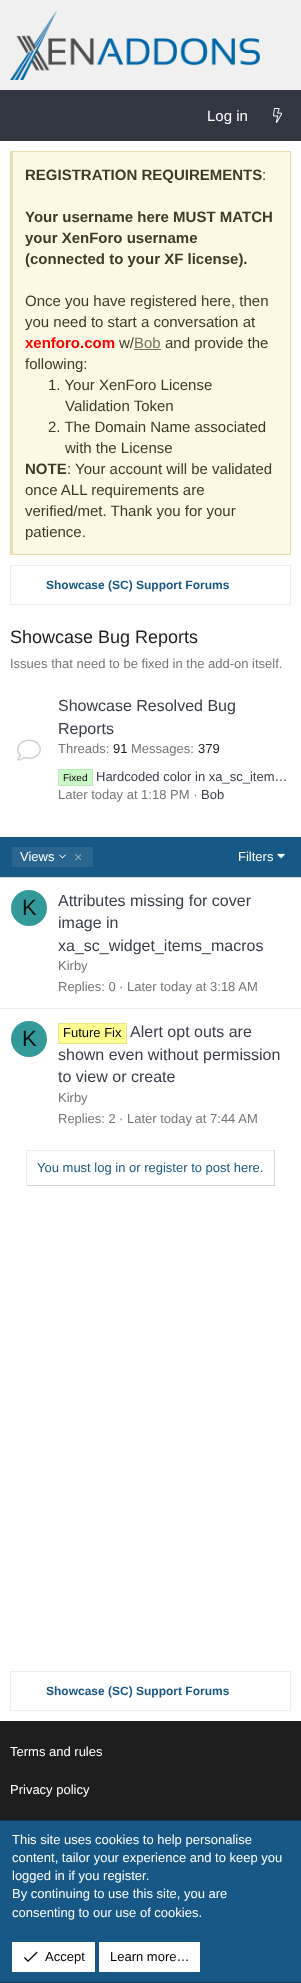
<svg xmlns="http://www.w3.org/2000/svg" width="301" height="1983" viewBox="0 0 301 1983">
  <style>
    .t1 { font: 15px Liberation Sans; fill: #fff; }
    .t2 { font: bold 15px Liberation Sans; fill: #3f3a23; }
    .t3 { font: 15px Liberation Sans; fill: #3f3a23; }
    .t4 { font: bold 15px Liberation Sans; fill: #f00; }
    .t5 { font: 15px Liberation Sans; fill: #78735d; }
    .t6 { font: bold 12px Liberation Sans; fill: #185886; }
    .t7 { font: 18px Liberation Sans; fill: #1d1d1d; }
    .t8 { font: 13px Liberation Sans; fill: #767676; }
    .t9 { font: 16px Liberation Sans; fill: #393e49; }
    .t10 { font: 13px Liberation Sans; fill: #1d1d1d; }
    .t11 { font: 10px Liberation Sans; fill: #000; }
    .t12 { font: 13px Liberation Sans; fill: #393e49; }
    .t13 { font: 13px Liberation Sans; fill: #fff; }
    .t14 { font: 22px Liberation Sans; fill: #061313; }
    .t15 { font: 13px Liberation Sans; fill: #000; }
    .t16 { font: 13px Liberation Sans; fill: #185886; }
  </style>
  <rect width="100%" height="100%" fill="#f0f0f0"/>
  <image x="10" y="10" width="250" height="70" href="images/1.png"/>
  <rect x="0" y="90" width="301" height="51" fill="#313641"/>
  <text x="207" y="121" class="t1">Log in</text>
  <image x="273" y="108" width="9" height="15" href="images/2.png"/>
  <rect x="0" y="141" width="301" height="1580" fill="#fff"/>
  <rect x="13" y="152" width="277" height="402" fill="#fcf8e3"/>
  <rect x="10" y="151" width="281" height="1" fill="#e6ddb0"/>
  <rect x="290" y="151" width="1" height="404" fill="#e6ddb0"/>
  <rect x="10" y="554" width="281" height="1" fill="#e6ddb0"/>
  <rect x="10" y="151" width="3" height="404" fill="#e6ddb0"/>
  <text x="25" y="180" class="t2">REGISTRATION REQUIREMENTS</text>
  <text x="262" y="180" class="t3">:</text>
  <text x="25" y="222" class="t2">Your username here MUST MATCH</text>
  <text x="25" y="243" class="t2">your XenForo username</text>
  <text x="25" y="264" class="t2">(connected to your XF license).</text>
  <text x="25" y="306" class="t3">Once you have registered here, then</text>
  <text x="25" y="327" class="t3">you need to start a conversation at</text>
  <text x="25" y="348" class="t4">xenforo.com</text>
  <text x="119" y="348" class="t3">w/</text>
  <text x="134" y="348" class="t5">Bob</text>
  <rect x="134" y="349" width="27" height="1" fill="#78735d"/>
  <text x="165" y="348" class="t3">and provide the</text>
  <text x="25" y="369" class="t3">following:</text>
  <text x="48" y="390" class="t3">1. Your XenForo License</text>
  <text x="65" y="411" class="t3">Validation Token</text>
  <text x="48" y="432" class="t3">2. The Domain Name associated</text>
  <text x="65" y="453" class="t3">with the License</text>
  <text x="25" y="474" class="t2">NOTE</text>
  <text x="67" y="474" class="t3">: Your account will be validated</text>
  <text x="25" y="495" class="t3">once ALL requirements are</text>
  <text x="25" y="516" class="t3">verified/met. Thank you for your</text>
  <text x="25" y="537" class="t3">patience.</text>
  <rect x="10.5" y="565.5" width="280" height="39" fill="none" stroke="#eee"/>
  <text x="46" y="589" class="t6">Showcase (SC) Support Forums</text>
  <text x="10" y="643" class="t7">Showcase Bug Reports</text>
  <text x="10" y="668" class="t8">Issues that need to be fixed in the add-on itself.</text>
  <image x="17" y="739" width="24" height="22" href="images/3.png"/>
  <text x="58" y="711" class="t9">Showcase Resolved Bug</text>
  <text x="58" y="734" class="t9">Reports</text>
  <text x="58" y="753" class="t8">Threads:</text>
  <text x="113" y="753" class="t10">91</text>
  <text x="131" y="753" class="t8">Messages:</text>
  <text x="198" y="753" class="t10">379</text>
  <rect x="58.5" y="769.5" width="34" height="16" fill="#ccf9c8" stroke="#bee8ba"/>
  <text x="63" y="781" class="t11">Fixed</text>
  <text x="96" y="781" class="t12">Hardcoded color in xa_sc_item…</text>
  <text x="58" y="799" class="t8">Later today at 1:18 PM ·</text>
  <text x="201" y="799" class="t12">Bob</text>
  <rect x="0" y="837" width="301" height="40" fill="#185886"/>
  <rect x="0" y="877" width="301" height="1" fill="#d5d5d5"/>
  <rect x="12" y="847" width="81" height="20" fill="#2a6590"/>
  <text x="20" y="861" class="t13">Views</text>
  <image x="59" y="854" width="7" height="5" href="images/4.png"/>
  <image x="75" y="854" width="6" height="7" href="images/5.png"/>
  <text x="238" y="861" class="t13">Filters</text>
  <image x="277" y="853" width="8" height="6" href="images/6.png"/>
  <circle cx="29" cy="908" r="18" fill="#399"/>
  <text x="22" y="915" class="t14">K</text>
  <text x="58" y="906" class="t9">Attributes missing for cover</text>
  <text x="58" y="928" class="t9">image in</text>
  <text x="58" y="951" class="t9">xa_sc_widget_items_macros</text>
  <text x="58" y="970" class="t8">Kirby</text>
  <text x="58" y="991" class="t8">Replies: 0</text>
  <text x="119" y="991" class="t8">· Later today at 3:18 AM</text>
  <rect x="0" y="1008" width="301" height="1" fill="#eee"/>
  <circle cx="29" cy="1039" r="18" fill="#399"/>
  <text x="22" y="1046" class="t14">K</text>
  <rect x="58.5" y="1023.5" width="68" height="20" fill="#ffff91" stroke="#e6e687"/>
  <text x="63" y="1037" class="t15">Future Fix</text>
  <text x="130" y="1037" class="t9">Alert opt outs are</text>
  <text x="58" y="1060" class="t9">shown even without permission</text>
  <text x="58" y="1082" class="t9">to view or create</text>
  <text x="58" y="1102" class="t8">Kirby</text>
  <text x="58" y="1123" class="t8">Replies: 2</text>
  <text x="119" y="1123" class="t8">· Later today at 7:44 AM</text>
  <rect x="26" y="1150" width="249" height="1" fill="#ececec"/>
  <rect x="274" y="1150" width="1" height="36" fill="#d2d2d2"/>
  <rect x="26" y="1185" width="249" height="1" fill="#d2d2d2"/>
  <rect x="26" y="1150" width="1" height="36" fill="#ececec"/>
  <text x="37" y="1172" class="t16">You must log in or register to post here.</text>
  <rect x="10.5" y="1671.5" width="280" height="39" fill="none" stroke="#eee"/>
  <text x="46" y="1695" class="t6">Showcase (SC) Support Forums</text>
  <rect x="0" y="1721" width="301" height="99" fill="#1e1e1e"/>
  <text x="10" y="1756" class="t13">Terms and rules</text>
  <text x="10" y="1794" class="t13">Privacy policy</text>
  <rect x="0" y="1821" width="301" height="161" fill="#185886"/>
  <rect x="0" y="1820" width="301" height="1" fill="#103c5b"/>
  <rect x="0" y="1982" width="301" height="1" fill="#103c5b"/>
  <text x="12" y="1844" class="t13">This site uses cookies to help personalise</text>
  <text x="12" y="1862" class="t13">content, tailor your experience and to keep you</text>
  <text x="12" y="1880" class="t13">logged in if you register.</text>
  <text x="12" y="1898" class="t13">By continuing to use this site, you are</text>
  <text x="12" y="1917" class="t13">consenting to our use of cookies.</text>
  <rect x="12" y="1942" width="83" height="30" fill="#fff"/>
  <image x="24" y="1951" width="14" height="11" href="images/7.png"/>
  <text x="45" y="1961" class="t15">Accept</text>
  <rect x="99" y="1942" width="101" height="30" fill="#fff"/>
  <text x="110" y="1961" class="t15">Learn more…</text>
</svg>
